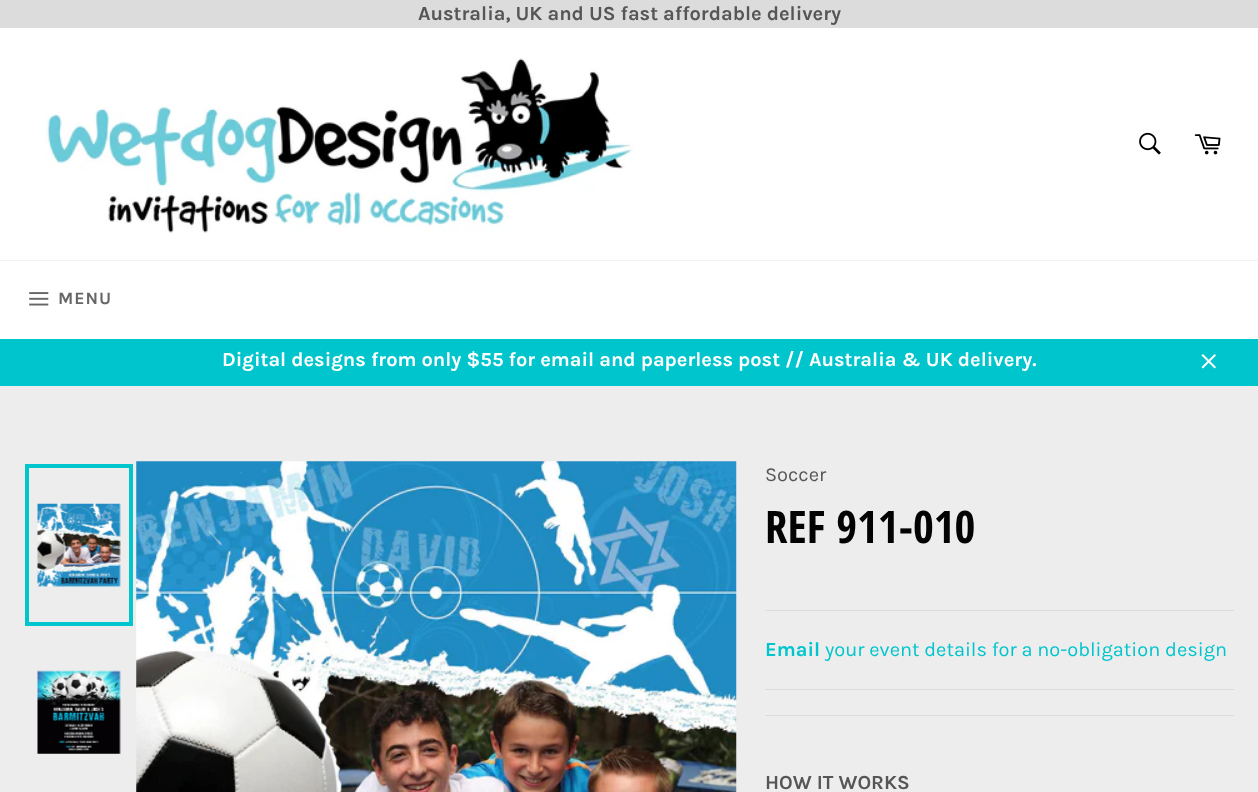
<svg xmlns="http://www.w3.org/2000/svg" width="1258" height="792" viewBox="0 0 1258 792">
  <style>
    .t1 { font: bold 20px Karla; fill: #565656; }
    .t2 { font: bold 17.5px Karla; letter-spacing: 1px; fill: #666; }
    .t3 { font: bold 20px Karla; fill: #fff; }
    .t4 { font: 20px Karla; fill: #565656; }
    .t5 { font: bold 45px Open Sans Condensed; fill: #030303; }
    .t6 { font: bold 20px Karla; fill: #00c5cd; }
    .t7 { font: 20px Karla; fill: #00c5cd; }
  </style>
  <rect width="100%" height="100%" fill="#dcdcdc"/>
  <text x="418" y="20" class="t1">Australia, UK and US fast affordable delivery</text>
  <rect x="0" y="28" width="1258" height="232" fill="#fff"/>
  <image x="45" y="58" width="589" height="175" href="images/1.png"/>
  <image x="1139" y="132" width="22" height="23" href="images/2.png"/>
  <image x="1194" y="134" width="27" height="21" href="images/3.png"/>
  <rect x="0" y="261" width="1258" height="78" fill="#fff"/>
  <rect x="0" y="260" width="1258" height="1" fill="#f2f2f2"/>
  <image x="29" y="292" width="20" height="14" href="images/4.png"/>
  <text x="58" y="304" class="t2">MENU</text>
  <rect x="0" y="339" width="1258" height="47" fill="#00c5cd"/>
  <text x="222" y="366" class="t3">Digital designs from only $55 for email and paperless post // Australia &amp; UK delivery.</text>
  <image x="1201" y="354" width="15" height="15" href="images/5.png"/>
  <rect x="0" y="386" width="1258" height="406" fill="#ededed"/>
  <image x="37" y="503" width="84" height="84" href="images/6.png"/>
  <rect x="27" y="466" width="104" height="158" fill="none" stroke="#00c5cd" stroke-width="4"/>
  <image x="37" y="670" width="84" height="84" href="images/7.png"/>
  <image x="136" y="461" width="601" height="331" href="images/8.png"/>
  <text x="765" y="481" class="t4">Soccer</text>
  <text x="765" y="543" class="t5">REF 911-010</text>
  <rect x="765" y="610" width="469" height="1" fill="#dcdcdc"/>
  <text x="765" y="656" class="t6">Email</text>
  <text x="825" y="656" class="t7">your event details for a no-obligation design</text>
  <rect x="765" y="689" width="469" height="1" fill="#dcdcdc"/>
  <rect x="765" y="715" width="469" height="1" fill="#dcdcdc"/>
  <text x="765" y="789" class="t1">HOW IT WORKS</text>
</svg>
